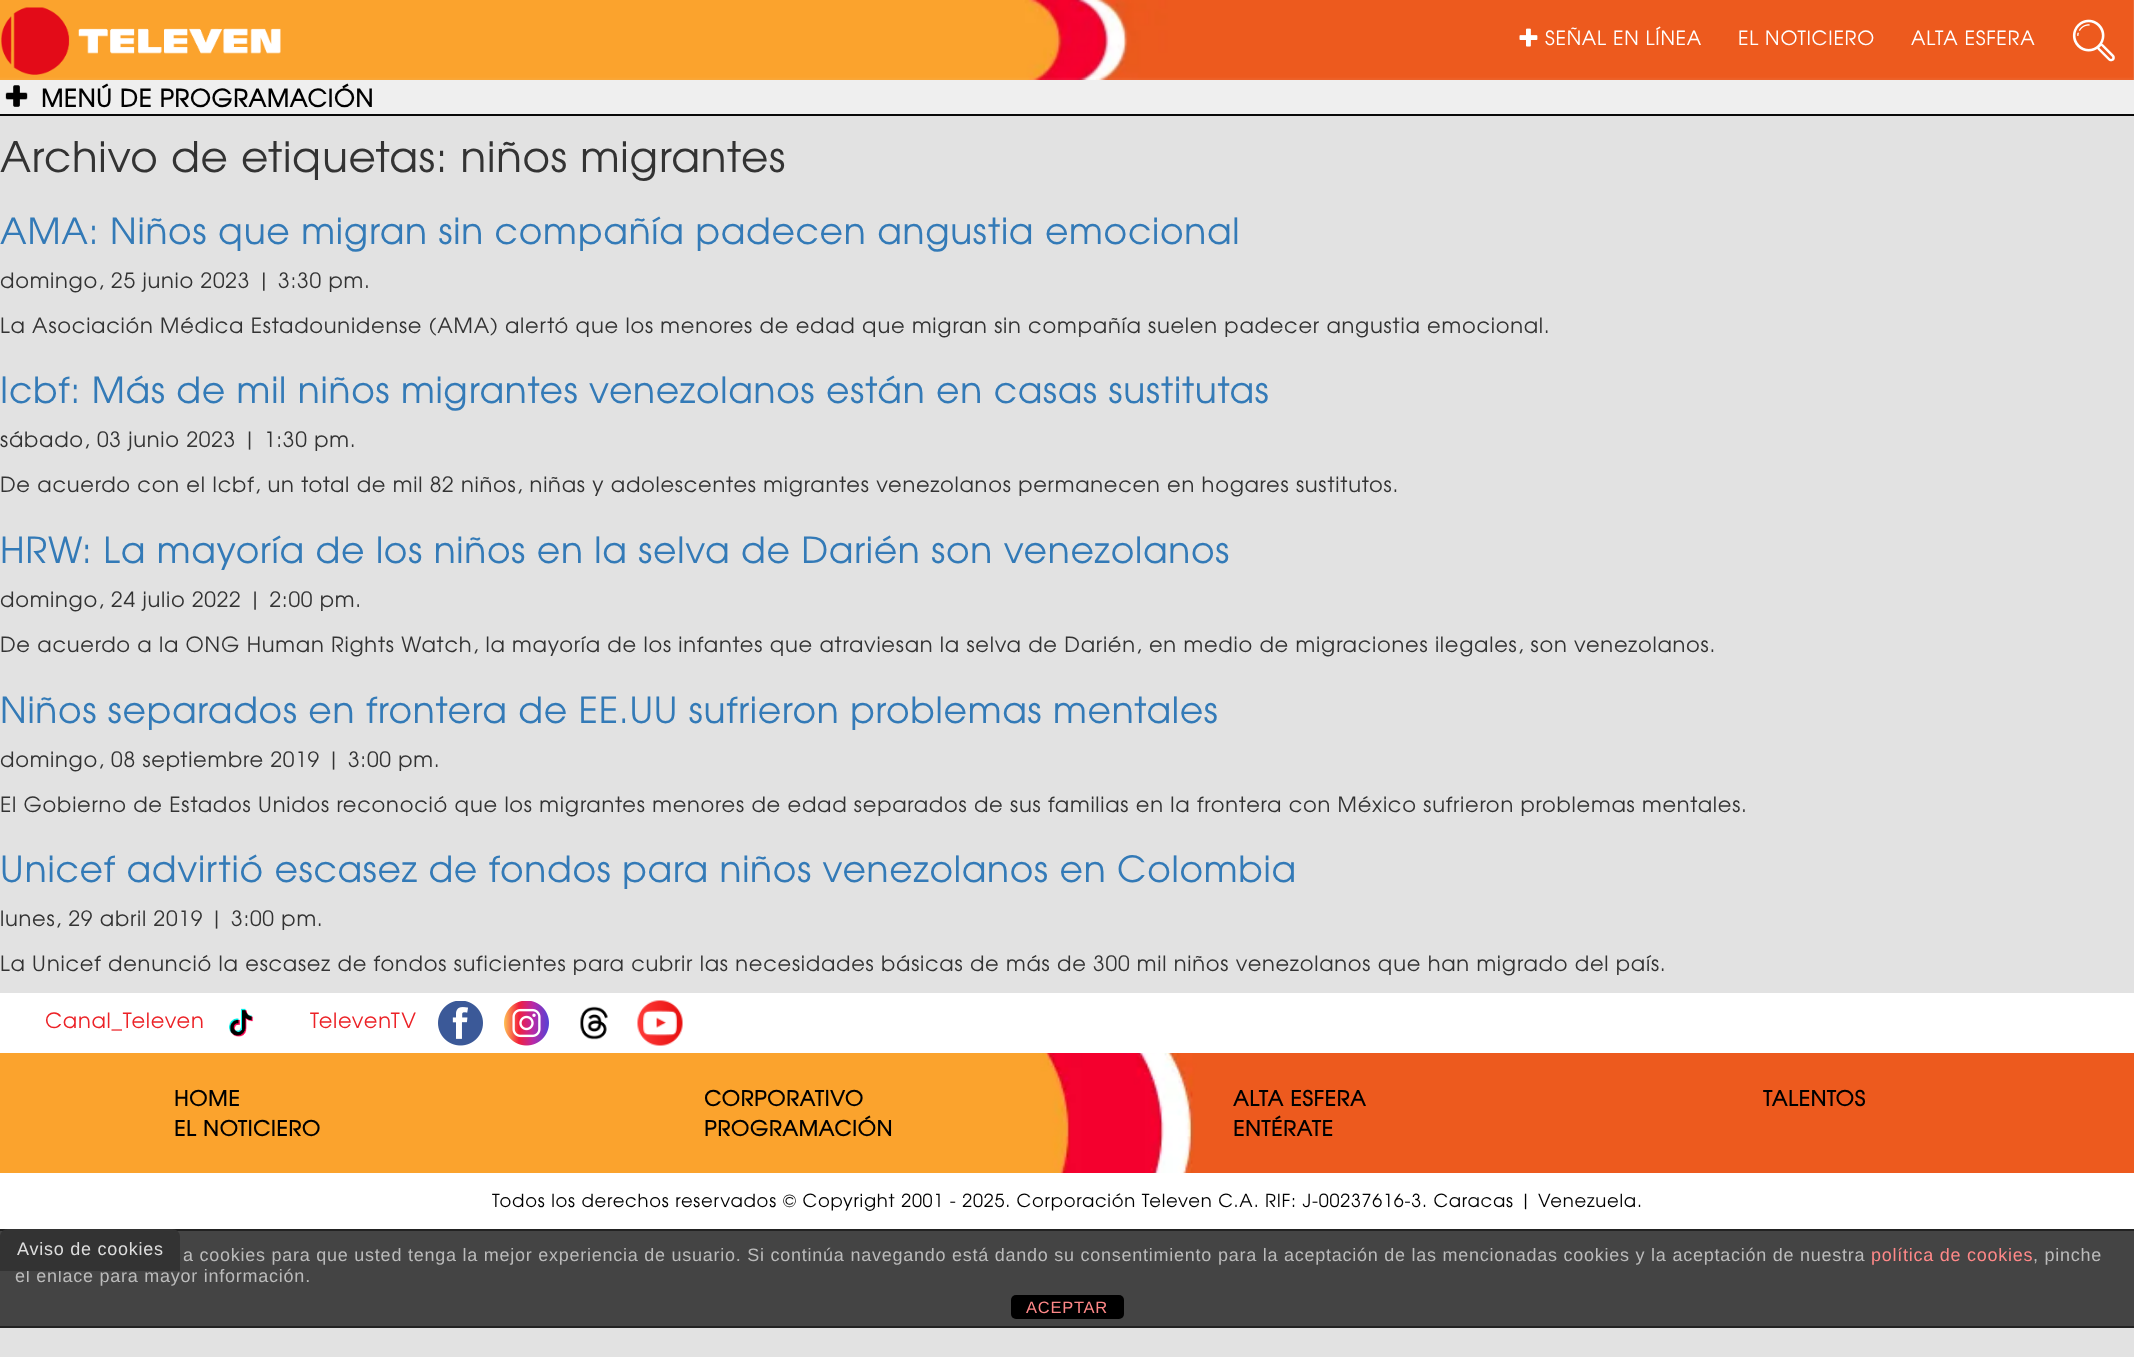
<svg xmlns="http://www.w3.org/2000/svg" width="2134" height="1357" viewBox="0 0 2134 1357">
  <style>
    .t1 { font: 19.5px TeX Gyre Adventor; letter-spacing: 0.75px; fill: #fff; }
    .t2 { font: bold 24px TeX Gyre Adventor; letter-spacing: 0.75px; fill: #000; }
    .t3 { font: 42px TeX Gyre Adventor; letter-spacing: 0.75px; fill: #333; }
    .t4 { font: 36px TeX Gyre Adventor; letter-spacing: 0.75px; fill: #337ab7; }
    .t5 { font: 21px TeX Gyre Adventor; letter-spacing: 0.75px; fill: #333; }
    .t6 { font: 21px TeX Gyre Adventor; letter-spacing: 0.75px; fill: #ec2227; }
    .t7 { font: bold 21px TeX Gyre Adventor; letter-spacing: 0.75px; fill: #000; }
    .t8 { font: 18px TeX Gyre Adventor; letter-spacing: 0.75px; fill: #000; }
    .t9 { font: 18px Liberation Sans; letter-spacing: 0.75px; fill: #bbb; }
    .t10 { font: 18px Liberation Sans; letter-spacing: 0.75px; fill: #ddd; }
    .t11 { font: 18px Liberation Sans; letter-spacing: 0.75px; fill: #f88; }
    .t12 { font: 16.5px Liberation Sans; letter-spacing: 0.75px; fill: #f88; }
  </style>
  <rect width="100%" height="100%" fill="#e2e2e2"/>
  <rect x="0" y="114" width="2134" height="2" fill="#080808"/>
  <image x="0" y="0" width="2134" height="80" href="images/1.png"/>
  <image x="1" y="7" width="280" height="68" href="images/2.png"/>
  <image x="1519" y="28" width="19" height="19" href="images/3.png"/>
  <text x="1545" y="45" class="t1">SEÑAL EN LÍNEA</text>
  <text x="1738" y="45" class="t1">EL NOTICIERO</text>
  <text x="1911" y="45" class="t1">ALTA ESFERA</text>
  <image x="2072" y="19" width="43" height="43" href="images/4.png"/>
  <rect x="0" y="80" width="2134" height="34" fill="#efefef"/>
  <image x="5" y="85" width="23" height="22" href="images/5.png"/>
  <text x="41" y="107" class="t2">MENÚ DE PROGRAMACIÓN</text>
  <text x="0" y="172" class="t3">Archivo de etiquetas: niños migrantes</text>
  <text x="0" y="244" class="t4">AMA: Niños que migran sin compañía padecen angustia emocional</text>
  <text x="0" y="288" class="t5">domingo, 25 junio 2023 | 3:30 pm.</text>
  <text x="0" y="333" class="t5">La Asociación Médica Estadounidense (AMA) alertó que los menores de edad que migran sin compañía suelen padecer angustia emocional.</text>
  <text x="0" y="403" class="t4">Icbf: Más de mil niños migrantes venezolanos están en casas sustitutas</text>
  <text x="0" y="447" class="t5">sábado, 03 junio 2023 | 1:30 pm.</text>
  <text x="0" y="492" class="t5">De acuerdo con el Icbf, un total de mil 82 niños, niñas y adolescentes migrantes venezolanos permanecen en hogares sustitutos.</text>
  <text x="0" y="563" class="t4">HRW: La mayoría de los niños en la selva de Darién son venezolanos</text>
  <text x="0" y="607" class="t5">domingo, 24 julio 2022 | 2:00 pm.</text>
  <text x="0" y="652" class="t5">De acuerdo a la ONG Human Rights Watch, la mayoría de los infantes que atraviesan la selva de Darién, en medio de migraciones ilegales, son venezolanos.</text>
  <text x="0" y="723" class="t4">Niños separados en frontera de EE.UU sufrieron problemas mentales</text>
  <text x="0" y="767" class="t5">domingo, 08 septiembre 2019 | 3:00 pm.</text>
  <text x="0" y="812" class="t5">El Gobierno de Estados Unidos reconoció que los migrantes menores de edad separados de sus familias en la frontera con México sufrieron problemas mentales.</text>
  <text x="0" y="882" class="t4">Unicef advirtió escasez de fondos para niños venezolanos en Colombia</text>
  <text x="0" y="926" class="t5">lunes, 29 abril 2019 | 3:00 pm.</text>
  <text x="0" y="971" class="t5">La Unicef denunció la escasez de fondos suficientes para cubrir las necesidades básicas de más de 300 mil niños venezolanos que han migrado del país.</text>
  <rect x="0" y="993" width="2134" height="60" fill="#fff"/>
  <text x="45" y="1028" class="t6">Canal_Televen</text>
  <image x="229" y="1008" width="25" height="29" href="images/6.png"/>
  <text x="310" y="1028" class="t6">TelevenTV</text>
  <image x="438" y="1001" width="45" height="45" href="images/7.png"/>
  <image x="504" y="1001" width="45" height="45" href="images/8.png"/>
  <image x="580" y="1006" width="28" height="34" href="images/9.png"/>
  <image x="637" y="1000" width="46" height="46" href="images/10.png"/>
  <image x="0" y="1053" width="2134" height="120" href="images/11.png"/>
  <text x="174" y="1106" class="t7">HOME</text>
  <text x="174" y="1136" class="t7">EL NOTICIERO</text>
  <text x="704" y="1106" class="t7">CORPORATIVO</text>
  <text x="704" y="1136" class="t7">PROGRAMACIÓN</text>
  <text x="1233" y="1106" class="t7">ALTA ESFERA</text>
  <text x="1233" y="1136" class="t7">ENTÉRATE</text>
  <text x="1763" y="1106" class="t7">TALENTOS</text>
  <rect x="0" y="1173" width="2134" height="56" fill="#fff"/>
  <text x="492" y="1207" class="t8">Todos los derechos reservados © Copyright 2001 - 2025. Corporación Televen C.A. RIF: J-00237616-3. Caracas | Venezuela.</text>
  <rect x="0" y="1231" width="2134" height="95" fill="#444"/>
  <rect x="0" y="1229" width="2134" height="2" fill="#222"/>
  <text x="15" y="1282" class="t9">el enlace para mayor información.</text>
  <path d="M8 1229H172C176.5 1229 180 1232.5 180 1237V1271H0V1237C0 1232.5 3.5 1229 8 1229Z" fill="#333"/>
  <text x="17" y="1255" class="t10">Aviso de cookies</text>
  <rect x="0" y="1326" width="2134" height="2" fill="#222"/>
  <text x="183" y="1261" class="t9">a cookies para que usted tenga la mejor experiencia de usuario. Si continúa navegando está dando su consentimiento para la aceptación de las mencionadas cookies y la aceptación de nuestra</text>
  <text x="1871" y="1261" class="t11">política de cookies</text>
  <text x="2033" y="1261" class="t9">, pinche</text>
  <rect x="1011" y="1295" width="113" height="24" rx="5" fill="#000"/>
  <text x="1026" y="1313" class="t12">ACEPTAR</text>
</svg>
